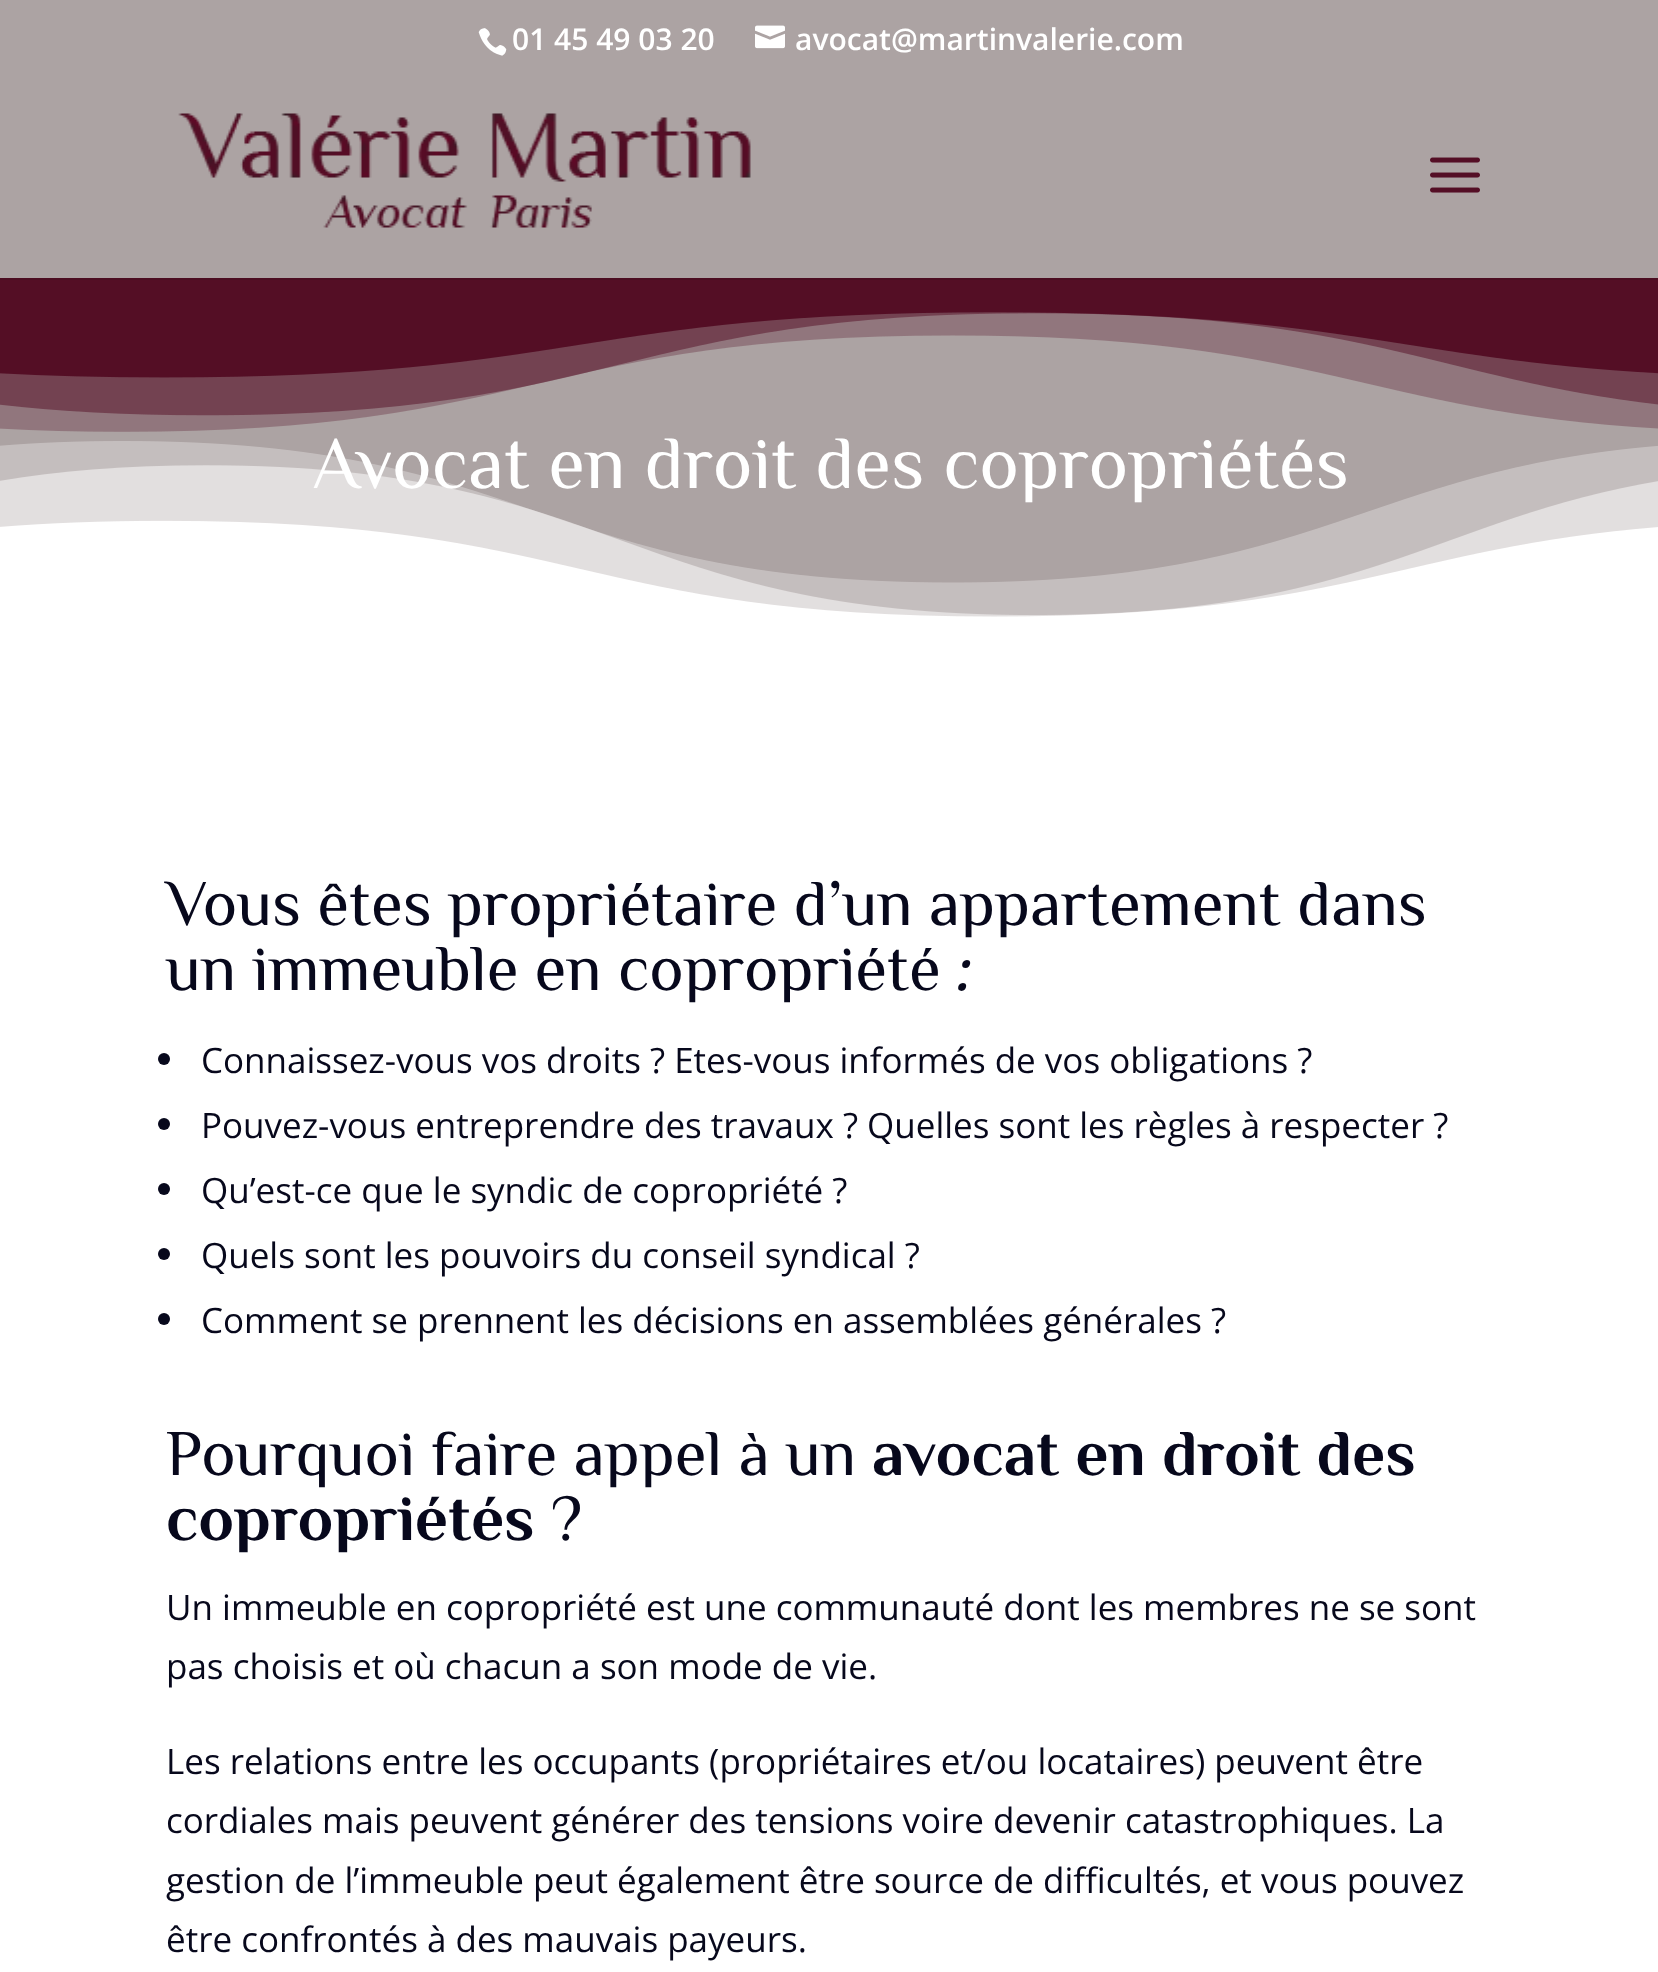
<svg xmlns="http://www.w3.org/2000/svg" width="1658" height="1972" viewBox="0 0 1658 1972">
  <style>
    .t1 { font: 600 30px Open Sans; fill: #fff; }
    .t2 { font: 75px Philosopher; fill: #fff; }
    .t3 { font: 65px Philosopher; fill: #07081c; }
    .t4 { font: italic bold 65px Philosopher; fill: #07081c; }
    .t5 { font: 35px Open Sans; fill: #07081c; }
    .t6 { font: bold 65px Philosopher; fill: #07081c; }
  </style>
  <rect width="100%" height="100%" fill="#fff"/>
  <rect x="0" y="278" width="1658" height="2" fill="#4c0d21"/>
  <rect x="0" y="0" width="1658" height="278" fill="#aca3a3"/>
  <image x="178" y="113" width="573" height="115" href="images/1.png"/>
  <image x="1430" y="157" width="50" height="36" href="images/2.png"/>
  <image x="478" y="28" width="29" height="28" href="images/3.png"/>
  <text x="512" y="50" class="t1">01 45 49 03 20</text>
  <image x="755" y="25" width="30" height="24" href="images/4.png"/>
  <text x="795" y="50" class="t1">avocat@martinvalerie.com</text>
  <rect x="0" y="312" width="1658" height="305" fill="#aca3a3"/>
  <image x="0" y="280" width="1658" height="152" href="images/5.png"/>
  <image x="0" y="441" width="1658" height="232" href="images/6.png"/>
  <text x="312" y="488" class="t2">Avocat en droit des copropriétés</text>
  <text x="166" y="925" class="t3">Vous êtes propriétaire d’un appartement dans</text>
  <text x="166" y="990" class="t3">un immeuble en copropriété</text>
  <text x="957" y="990" class="t4">:</text>
  <circle cx="164" cy="1059" r="6" fill="#07081c"/>
  <text x="201" y="1073" class="t5">Connaissez-vous vos droits ? Etes-vous informés de vos obligations ?</text>
  <circle cx="164" cy="1124" r="6" fill="#07081c"/>
  <text x="201" y="1138" class="t5">Pouvez-vous entreprendre des travaux ? Quelles sont les règles à respecter ?</text>
  <circle cx="164" cy="1189" r="6" fill="#07081c"/>
  <text x="201" y="1203" class="t5">Qu’est-ce que le syndic de copropriété ?</text>
  <circle cx="164" cy="1254" r="6" fill="#07081c"/>
  <text x="201" y="1268" class="t5">Quels sont les pouvoirs du conseil syndical ?</text>
  <circle cx="164" cy="1319" r="6" fill="#07081c"/>
  <text x="201" y="1333" class="t5">Comment se prennent les décisions en assemblées générales ?</text>
  <text x="166" y="1475" class="t3">Pourquoi faire appel à un</text>
  <text x="872" y="1475" class="t6">avocat en droit des</text>
  <text x="166" y="1540" class="t6">copropriétés</text>
  <text x="551" y="1540" class="t3">?</text>
  <text x="166" y="1620" class="t5">Un immeuble en copropriété est une communauté dont les membres ne se sont</text>
  <text x="166" y="1679" class="t5">pas choisis et où chacun a son mode de vie.</text>
  <text x="166" y="1774" class="t5">Les relations entre les occupants (propriétaires et/ou locataires) peuvent être</text>
  <text x="166" y="1833" class="t5">cordiales mais peuvent générer des tensions voire devenir catastrophiques. La</text>
  <text x="166" y="1893" class="t5">gestion de l’immeuble peut également être source de difficultés, et vous pouvez</text>
  <text x="166" y="1952" class="t5">être confrontés à des mauvais payeurs.</text>
</svg>
